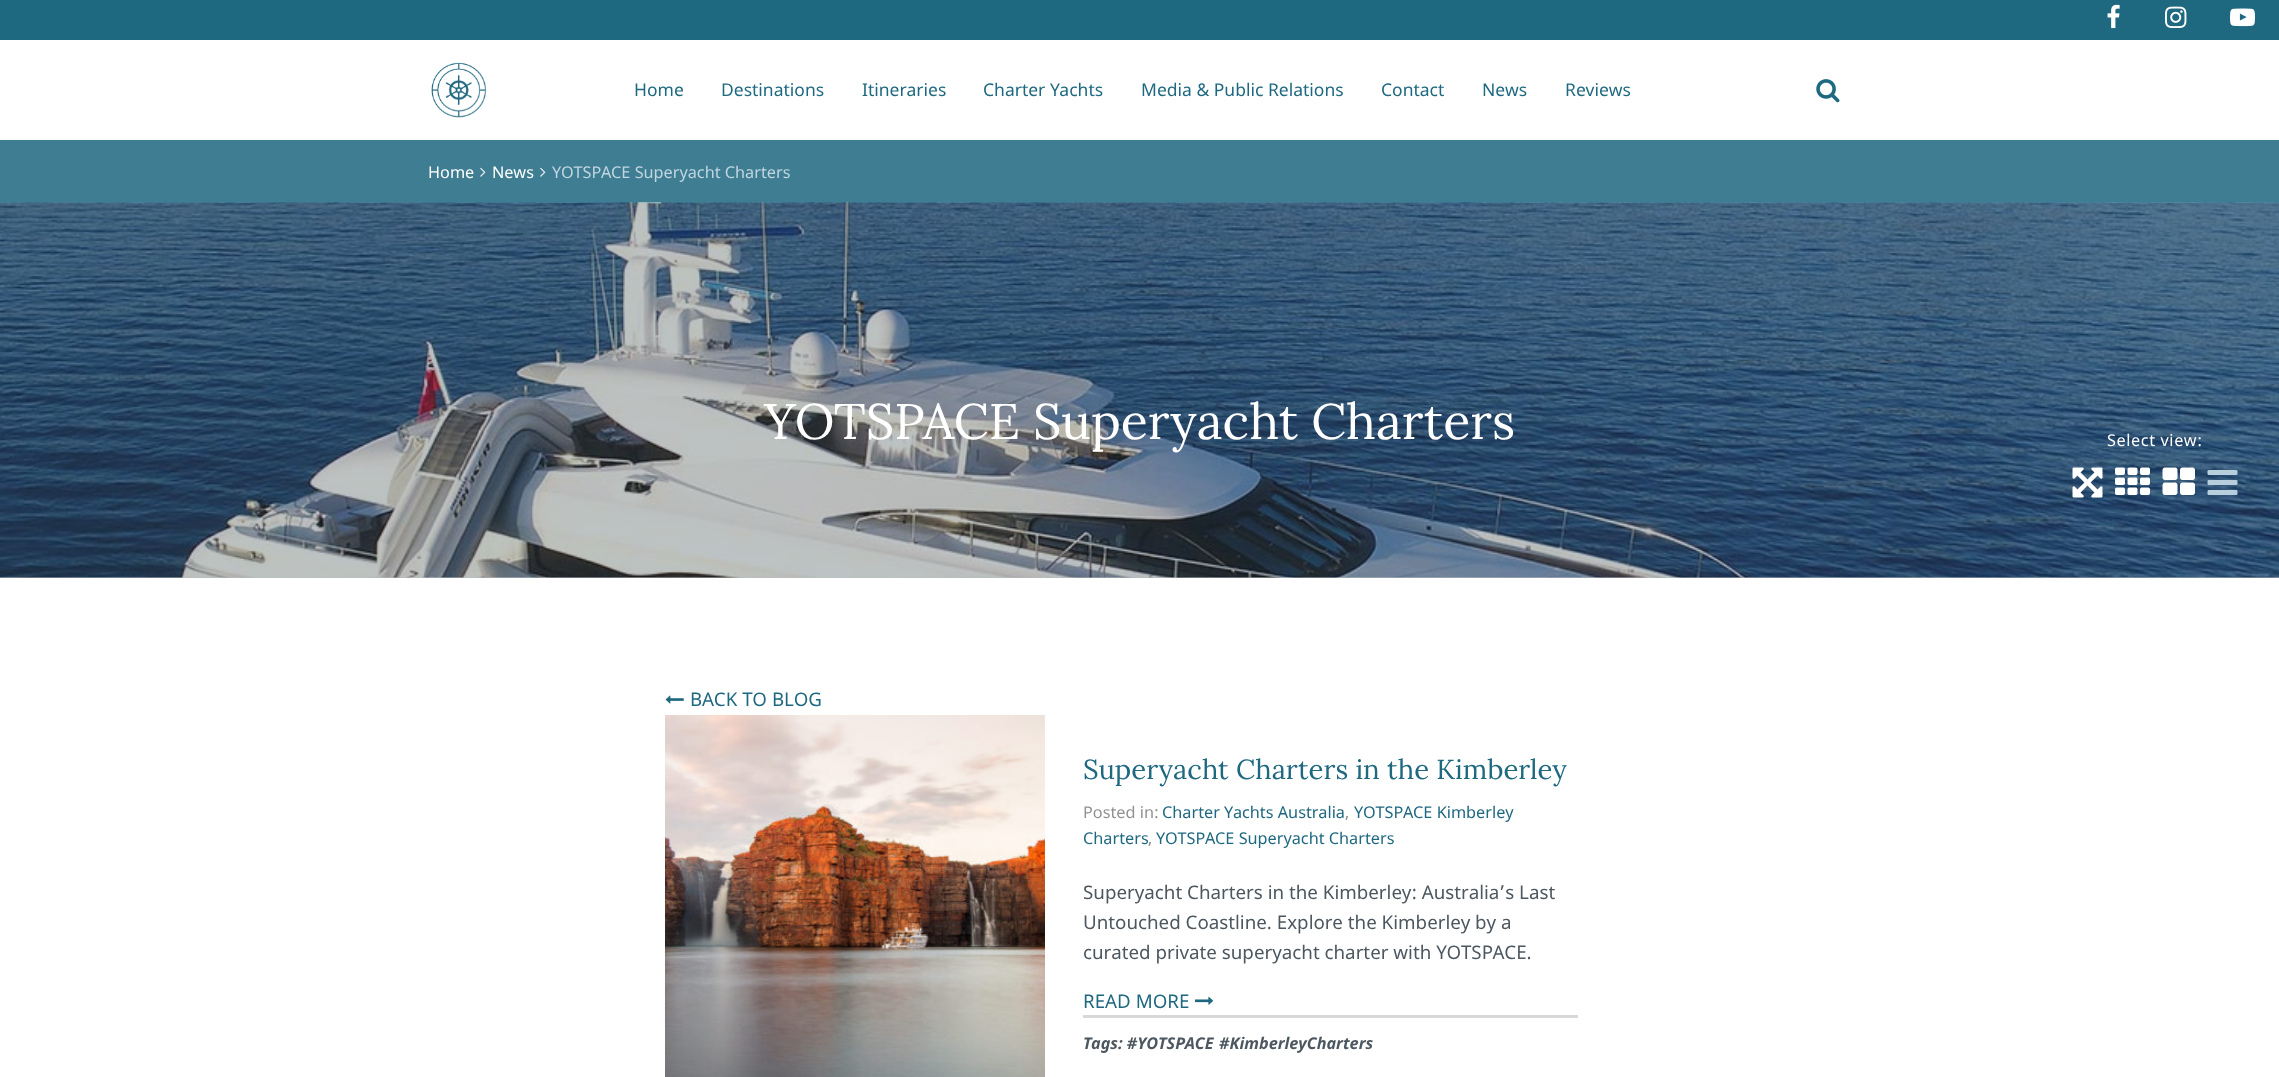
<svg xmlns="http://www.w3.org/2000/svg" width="2279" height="1077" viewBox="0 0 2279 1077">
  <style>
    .t1 { font: 17.5px Noto Sans; fill: #1e6880; }
    .t2 { font: 16.25px Noto Sans; fill: #fff; }
    .t3 { font: 16.25px Noto Sans; fill: #c1d6e1; }
    .t4 { font: 50px Lora; fill: #fff; }
    .t5 { font: 16.25px Noto Sans; letter-spacing: 0.6px; fill: #fff; }
    .t6 { font: 18.75px Noto Sans; fill: #1e6880; }
    .t7 { font: 27.5px Lora; fill: #1e6880; }
    .t8 { font: 16.25px Noto Sans; fill: #919191; }
    .t9 { font: 16.25px Noto Sans; fill: #1e6880; }
    .t10 { font: 18.75px Noto Sans; fill: #4c5760; }
    .t11 { font: italic bold 16.25px Noto Sans; fill: #4c5760; }
  </style>
  <rect width="100%" height="100%" fill="#fff"/>
  <rect x="0" y="140" width="2279" height="63" fill="#3e7d92"/>
  <rect x="0" y="0" width="2279" height="40" fill="#1e6880"/>
  <image x="2107" y="4" width="13" height="25" href="images/1.png"/>
  <image x="2165" y="6" width="22" height="22" href="images/2.png"/>
  <image x="2230" y="8" width="25" height="19" href="images/3.png"/>
  <image x="431" y="62" width="55" height="56" href="images/4.png"/>
  <text x="634" y="96" class="t1">Home</text>
  <text x="721" y="96" class="t1">Destinations</text>
  <text x="862" y="96" class="t1">Itineraries</text>
  <text x="983" y="96" class="t1">Charter Yachts</text>
  <text x="1141" y="96" class="t1">Media &amp; Public Relations</text>
  <text x="1381" y="96" class="t1">Contact</text>
  <text x="1482" y="96" class="t1">News</text>
  <text x="1565" y="96" class="t1">Reviews</text>
  <image x="1816" y="79" width="24" height="24" href="images/5.png"/>
  <text x="428" y="178" class="t2">Home</text>
  <image x="480" y="167" width="6" height="10" href="images/6.png"/>
  <text x="492" y="178" class="t2">News</text>
  <image x="540" y="167" width="6" height="10" href="images/6.png"/>
  <text x="552" y="178" class="t3">YOTSPACE Superyacht Charters</text>
  <rect x="0" y="577" width="2279" height="1" fill="#b7bcbf"/>
  <image x="0" y="202" width="2279" height="376" href="images/7.png"/>
  <text x="764" y="439" class="t4">YOTSPACE Superyacht Charters</text>
  <text x="2107" y="446" class="t5">Select view:</text>
  <image x="2072" y="467" width="31" height="31" href="images/8.png"/>
  <image x="2115" y="467" width="35" height="28" href="images/9.png"/>
  <image x="2162" y="467" width="33" height="28" href="images/10.png"/>
  <image x="2207" y="470" width="31" height="25" href="images/11.png"/>
  <image x="665" y="695" width="19" height="9" href="images/12.png"/>
  <text x="690" y="706" class="t6">BACK TO BLOG</text>
  <image x="665" y="715" width="380" height="362" href="images/13.png"/>
  <text x="1083" y="779" class="t7">Superyacht Charters in the Kimberley</text>
  <text x="1083" y="818" class="t8">Posted in:</text>
  <text x="1162" y="818" class="t9">Charter Yachts Australia</text>
  <text x="1345" y="818" class="t8">,</text>
  <text x="1354" y="818" class="t9">YOTSPACE Kimberley</text>
  <text x="1083" y="844" class="t9">Charters</text>
  <text x="1148" y="844" class="t8">,</text>
  <text x="1156" y="844" class="t9">YOTSPACE Superyacht Charters</text>
  <text x="1083" y="899" class="t10">Superyacht Charters in the Kimberley: Australia’s Last</text>
  <text x="1083" y="929" class="t10">Untouched Coastline. Explore the Kimberley by a</text>
  <text x="1083" y="959" class="t10">curated private superyacht charter with YOTSPACE.</text>
  <text x="1083" y="1008" class="t6">READ MORE</text>
  <image x="1195" y="996" width="18" height="9" href="images/14.png"/>
  <rect x="1083" y="1015" width="495" height="3" fill="#d8d8d8"/>
  <text x="1083" y="1049" class="t11">Tags: #YOTSPACE</text>
  <text x="1219" y="1049" class="t11">#KimberleyCharters</text>
</svg>
